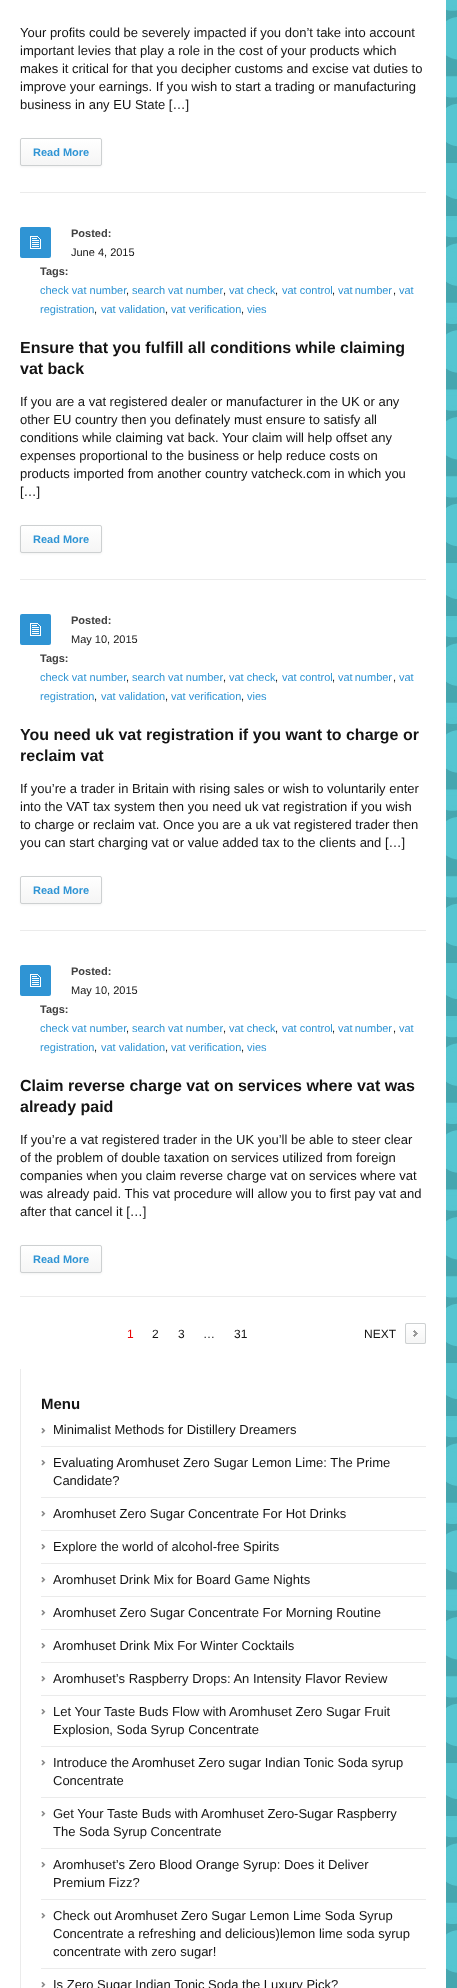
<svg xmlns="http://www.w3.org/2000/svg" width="457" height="1988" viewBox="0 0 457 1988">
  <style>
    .t1 { font: 13px Liberation Sans; fill: #141414; }
    .t2 { font: bold 11px Liberation Sans; fill: #2f94d4; }
    .t3 { font: bold 11px Liberation Sans; fill: #404040; }
    .t4 { font: 11px Liberation Sans; fill: #141414; }
    .t5 { font: 11px Liberation Sans; fill: #2f94d4; }
    .t6 { font: bold 16px Liberation Sans; fill: #141414; }
    .t7 { font: 12px Liberation Sans; fill: #e90505; }
    .t8 { font: 12px Liberation Sans; fill: #141414; }
    .t9 { font: bold 15px Liberation Sans; fill: #141414; }
  </style>
  <defs>
    <clipPath id="clip1"><rect x="20" y="138" width="82" height="28" rx="2"/></clipPath>
    <linearGradient id="g1" gradientUnits="userSpaceOnUse" x1="61" y1="139" x2="61" y2="165"><stop offset="0" stop-color="#fff"/><stop offset="1" stop-color="#f5f5f5"/></linearGradient>
    <clipPath id="clip2"><rect x="20" y="525" width="82" height="28" rx="2"/></clipPath>
    <linearGradient id="g2" gradientUnits="userSpaceOnUse" x1="61" y1="526" x2="61" y2="552"><stop offset="0" stop-color="#fff"/><stop offset="1" stop-color="#f5f5f5"/></linearGradient>
    <clipPath id="clip3"><rect x="20" y="876" width="82" height="28" rx="2"/></clipPath>
    <linearGradient id="g3" gradientUnits="userSpaceOnUse" x1="61" y1="877" x2="61" y2="903"><stop offset="0" stop-color="#fff"/><stop offset="1" stop-color="#f5f5f5"/></linearGradient>
    <clipPath id="clip4"><rect x="20" y="1245" width="82" height="28" rx="2"/></clipPath>
    <linearGradient id="g4" gradientUnits="userSpaceOnUse" x1="61" y1="1246" x2="61" y2="1272"><stop offset="0" stop-color="#fff"/><stop offset="1" stop-color="#f5f5f5"/></linearGradient>
  </defs>
  <rect width="100%" height="100%" fill="#fff"/>
  <image x="446" y="0" width="11" height="1988" href="images/1.png"/>
  <text x="20" y="37" class="t1">Your profits could be severely impacted if you don’t take into account</text>
  <text x="20" y="55" class="t1">important levies that play a role in the cost of your products which</text>
  <text x="20" y="73" class="t1">makes it critical for that you decipher customs and excise vat duties to</text>
  <text x="20" y="91" class="t1">improve your earnings. If you wish to start a trading or manufacturing</text>
  <text x="20" y="109" class="t1">business in any EU State […]</text>
  <rect x="20" y="139" width="82" height="28" rx="2" fill="#0000000d" filter="blur(1px)"/>
  <g clip-path="url(#clip1)">
    <rect x="20" y="139" width="82" height="26" fill="url(#g1)"/>
  </g>
  <rect x="20.5" y="138.5" width="81" height="27" rx="1.5" fill="none" stroke="#cdd0d1"/>
  <text x="33" y="156" class="t2">Read More</text>
  <rect x="20" y="192" width="406" height="1" fill="#ebebeb"/>
  <rect x="20" y="227" width="31" height="31" rx="2" fill="#2f94d4"/>
  <image x="30" y="236" width="11" height="13" href="images/2.png"/>
  <text x="71" y="237" class="t3">Posted:</text>
  <text x="71" y="256" class="t4">June 4, 2015</text>
  <text x="40" y="275" class="t3">Tags:</text>
  <text x="40" y="294" class="t5">check vat number</text>
  <text x="126" y="294" class="t4">,</text>
  <text x="132" y="294" class="t5">search vat number</text>
  <text x="223" y="294" class="t4">,</text>
  <text x="229" y="294" class="t5">vat check</text>
  <text x="275" y="294" class="t4">,</text>
  <text x="282" y="294" class="t5">vat control</text>
  <text x="332" y="294" class="t4">,</text>
  <text x="338" y="294" word-spacing="-1" class="t5">vat number</text>
  <text x="393" y="294" class="t4">,</text>
  <text x="399" y="294" class="t5">vat</text>
  <text x="40" y="313" class="t5">registration</text>
  <text x="94" y="313" class="t4">,</text>
  <text x="101" y="313" class="t5">vat validation</text>
  <text x="165" y="313" class="t4">,</text>
  <text x="171" y="313" class="t5">vat verification</text>
  <text x="241" y="313" class="t4">,</text>
  <text x="247" y="313" class="t5">vies</text>
  <text x="20" y="353" class="t6">Ensure that you fulfill all conditions while claiming</text>
  <text x="20" y="374" class="t6">vat back</text>
  <text x="20" y="406" class="t1">If you are a vat registered dealer or manufacturer in the UK or any</text>
  <text x="20" y="424" class="t1">other EU country then you definately must ensure to satisfy all</text>
  <text x="20" y="442" class="t1">conditions while claiming vat back. Your claim will help offset any</text>
  <text x="20" y="460" class="t1">expenses proportional to the business or help reduce costs on</text>
  <text x="20" y="478" class="t1">products imported from another country vatcheck.com in which you</text>
  <text x="20" y="496" class="t1">[…]</text>
  <rect x="20" y="526" width="82" height="28" rx="2" fill="#0000000d" filter="blur(1px)"/>
  <g clip-path="url(#clip2)">
    <rect x="20" y="526" width="82" height="26" fill="url(#g2)"/>
  </g>
  <rect x="20.5" y="525.5" width="81" height="27" rx="1.5" fill="none" stroke="#cdd0d1"/>
  <text x="33" y="543" class="t2">Read More</text>
  <rect x="20" y="579" width="406" height="1" fill="#ebebeb"/>
  <rect x="20" y="614" width="31" height="31" rx="2" fill="#2f94d4"/>
  <image x="30" y="623" width="11" height="13" href="images/2.png"/>
  <text x="71" y="624" class="t3">Posted:</text>
  <text x="71" y="643" class="t4">May 10, 2015</text>
  <text x="40" y="662" class="t3">Tags:</text>
  <text x="40" y="681" class="t5">check vat number</text>
  <text x="126" y="681" class="t4">,</text>
  <text x="132" y="681" class="t5">search vat number</text>
  <text x="223" y="681" class="t4">,</text>
  <text x="229" y="681" class="t5">vat check</text>
  <text x="275" y="681" class="t4">,</text>
  <text x="282" y="681" class="t5">vat control</text>
  <text x="332" y="681" class="t4">,</text>
  <text x="338" y="681" word-spacing="-1" class="t5">vat number</text>
  <text x="393" y="681" class="t4">,</text>
  <text x="399" y="681" class="t5">vat</text>
  <text x="40" y="700" class="t5">registration</text>
  <text x="94" y="700" class="t4">,</text>
  <text x="101" y="700" class="t5">vat validation</text>
  <text x="165" y="700" class="t4">,</text>
  <text x="171" y="700" class="t5">vat verification</text>
  <text x="241" y="700" class="t4">,</text>
  <text x="247" y="700" class="t5">vies</text>
  <text x="20" y="740" class="t6">You need uk vat registration if you want to charge or</text>
  <text x="20" y="761" class="t6">reclaim vat</text>
  <text x="20" y="793" class="t1">If you’re a trader in Britain with rising sales or wish to voluntarily enter</text>
  <text x="20" y="811" class="t1">into the VAT tax system then you need uk vat registration if you wish</text>
  <text x="20" y="829" class="t1">to charge or reclaim vat. Once you are a uk vat registered trader then</text>
  <text x="20" y="847" class="t1">you can start charging vat or value added tax to the clients and […]</text>
  <rect x="20" y="877" width="82" height="28" rx="2" fill="#0000000d" filter="blur(1px)"/>
  <g clip-path="url(#clip3)">
    <rect x="20" y="877" width="82" height="26" fill="url(#g3)"/>
  </g>
  <rect x="20.5" y="876.5" width="81" height="27" rx="1.5" fill="none" stroke="#cdd0d1"/>
  <text x="33" y="894" class="t2">Read More</text>
  <rect x="20" y="930" width="406" height="1" fill="#ebebeb"/>
  <rect x="20" y="965" width="31" height="31" rx="2" fill="#2f94d4"/>
  <image x="30" y="974" width="11" height="13" href="images/2.png"/>
  <text x="71" y="975" class="t3">Posted:</text>
  <text x="71" y="994" class="t4">May 10, 2015</text>
  <text x="40" y="1013" class="t3">Tags:</text>
  <text x="40" y="1032" class="t5">check vat number</text>
  <text x="126" y="1032" class="t4">,</text>
  <text x="132" y="1032" class="t5">search vat number</text>
  <text x="223" y="1032" class="t4">,</text>
  <text x="229" y="1032" class="t5">vat check</text>
  <text x="275" y="1032" class="t4">,</text>
  <text x="282" y="1032" class="t5">vat control</text>
  <text x="332" y="1032" class="t4">,</text>
  <text x="338" y="1032" word-spacing="-1" class="t5">vat number</text>
  <text x="393" y="1032" class="t4">,</text>
  <text x="399" y="1032" class="t5">vat</text>
  <text x="40" y="1051" class="t5">registration</text>
  <text x="94" y="1051" class="t4">,</text>
  <text x="101" y="1051" class="t5">vat validation</text>
  <text x="165" y="1051" class="t4">,</text>
  <text x="171" y="1051" class="t5">vat verification</text>
  <text x="241" y="1051" class="t4">,</text>
  <text x="247" y="1051" class="t5">vies</text>
  <text x="20" y="1091" class="t6">Claim reverse charge vat on services where vat was</text>
  <text x="20" y="1112" class="t6">already paid</text>
  <text x="20" y="1144" class="t1">If you’re a vat registered trader in the UK you’ll be able to steer clear</text>
  <text x="20" y="1162" class="t1">of the problem of double taxation on services utilized from foreign</text>
  <text x="20" y="1180" class="t1">companies when you claim reverse charge vat on services where vat</text>
  <text x="20" y="1198" class="t1">was already paid. This vat procedure will allow you to first pay vat and</text>
  <text x="20" y="1216" class="t1">after that cancel it […]</text>
  <rect x="20" y="1246" width="82" height="28" rx="2" fill="#0000000d" filter="blur(1px)"/>
  <g clip-path="url(#clip4)">
    <rect x="20" y="1246" width="82" height="26" fill="url(#g4)"/>
  </g>
  <rect x="20.5" y="1245.5" width="81" height="27" rx="1.5" fill="none" stroke="#cdd0d1"/>
  <text x="33" y="1263" class="t2">Read More</text>
  <rect x="20" y="1296" width="406" height="1" fill="#ebebeb"/>
  <text x="127" y="1338" class="t7">1</text>
  <text x="152" y="1338" class="t8">2</text>
  <text x="178" y="1338" class="t8">3</text>
  <text x="203" y="1338" class="t8">…</text>
  <text x="234" y="1338" class="t8">31</text>
  <image x="405" y="1323" width="21" height="21" href="images/3.png"/>
  <text x="364" y="1338" class="t8">NEXT</text>
  <rect x="20" y="1369" width="1" height="619" fill="#ebebeb"/>
  <text x="41" y="1409" class="t9">Menu</text>
  <image x="41" y="1428" width="5" height="6" href="images/4.png"/>
  <rect x="41" y="1446" width="385" height="1" fill="#ebebeb"/>
  <text x="53" y="1434" class="t1">Minimalist Methods for Distillery Dreamers</text>
  <image x="41" y="1460" width="5" height="6" href="images/4.png"/>
  <rect x="41" y="1497" width="385" height="1" fill="#ebebeb"/>
  <text x="53" y="1467" class="t1">Evaluating Aromhuset Zero Sugar Lemon Lime: The Prime</text>
  <text x="53" y="1485" class="t1">Candidate?</text>
  <image x="41" y="1511" width="5" height="6" href="images/4.png"/>
  <rect x="41" y="1530" width="385" height="1" fill="#ebebeb"/>
  <text x="53" y="1518" class="t1">Aromhuset Zero Sugar Concentrate For Hot Drinks</text>
  <image x="41" y="1544" width="5" height="6" href="images/4.png"/>
  <rect x="41" y="1563" width="385" height="1" fill="#ebebeb"/>
  <text x="53" y="1551" class="t1">Explore the world of alcohol-free Spirits</text>
  <image x="41" y="1577" width="5" height="6" href="images/4.png"/>
  <rect x="41" y="1596" width="385" height="1" fill="#ebebeb"/>
  <text x="53" y="1584" class="t1">Aromhuset Drink Mix for Board Game Nights</text>
  <image x="41" y="1610" width="5" height="6" href="images/4.png"/>
  <rect x="41" y="1629" width="385" height="1" fill="#ebebeb"/>
  <text x="53" y="1617" class="t1">Aromhuset Zero Sugar Concentrate For Morning Routine</text>
  <image x="41" y="1643" width="5" height="6" href="images/4.png"/>
  <rect x="41" y="1662" width="385" height="1" fill="#ebebeb"/>
  <text x="53" y="1650" class="t1">Aromhuset Drink Mix For Winter Cocktails</text>
  <image x="41" y="1676" width="5" height="6" href="images/4.png"/>
  <rect x="41" y="1695" width="385" height="1" fill="#ebebeb"/>
  <text x="53" y="1683" class="t1">Aromhuset’s Raspberry Drops: An Intensity Flavor Review</text>
  <image x="41" y="1709" width="5" height="6" href="images/4.png"/>
  <rect x="41" y="1746" width="385" height="1" fill="#ebebeb"/>
  <text x="53" y="1716" class="t1">Let Your Taste Buds Flow with Aromhuset Zero Sugar Fruit</text>
  <text x="53" y="1734" class="t1">Explosion, Soda Syrup Concentrate</text>
  <image x="41" y="1760" width="5" height="6" href="images/4.png"/>
  <rect x="41" y="1797" width="385" height="1" fill="#ebebeb"/>
  <text x="53" y="1767" class="t1">Introduce the Aromhuset Zero sugar Indian Tonic Soda syrup</text>
  <text x="53" y="1785" class="t1">Concentrate</text>
  <image x="41" y="1811" width="5" height="6" href="images/4.png"/>
  <rect x="41" y="1848" width="385" height="1" fill="#ebebeb"/>
  <text x="53" y="1818" class="t1">Get Your Taste Buds with Aromhuset Zero-Sugar Raspberry</text>
  <text x="53" y="1836" class="t1">The Soda Syrup Concentrate</text>
  <image x="41" y="1862" width="5" height="6" href="images/4.png"/>
  <rect x="41" y="1899" width="385" height="1" fill="#ebebeb"/>
  <text x="53" y="1869" class="t1">Aromhuset’s Zero Blood Orange Syrup: Does it Deliver</text>
  <text x="53" y="1887" class="t1">Premium Fizz?</text>
  <image x="41" y="1913" width="5" height="6" href="images/4.png"/>
  <rect x="41" y="1968" width="385" height="1" fill="#ebebeb"/>
  <text x="53" y="1920" class="t1">Check out Aromhuset Zero Sugar Lemon Lime Soda Syrup</text>
  <text x="53" y="1938" class="t1">Concentrate a refreshing and delicious)lemon lime soda syrup</text>
  <text x="53" y="1956" class="t1">concentrate with zero sugar!</text>
  <image x="41" y="1982" width="5" height="6" href="images/4.png"/>
  <text x="53" y="1989" class="t1">Is Zero Sugar Indian Tonic Soda the Luxury Pick?</text>
</svg>
